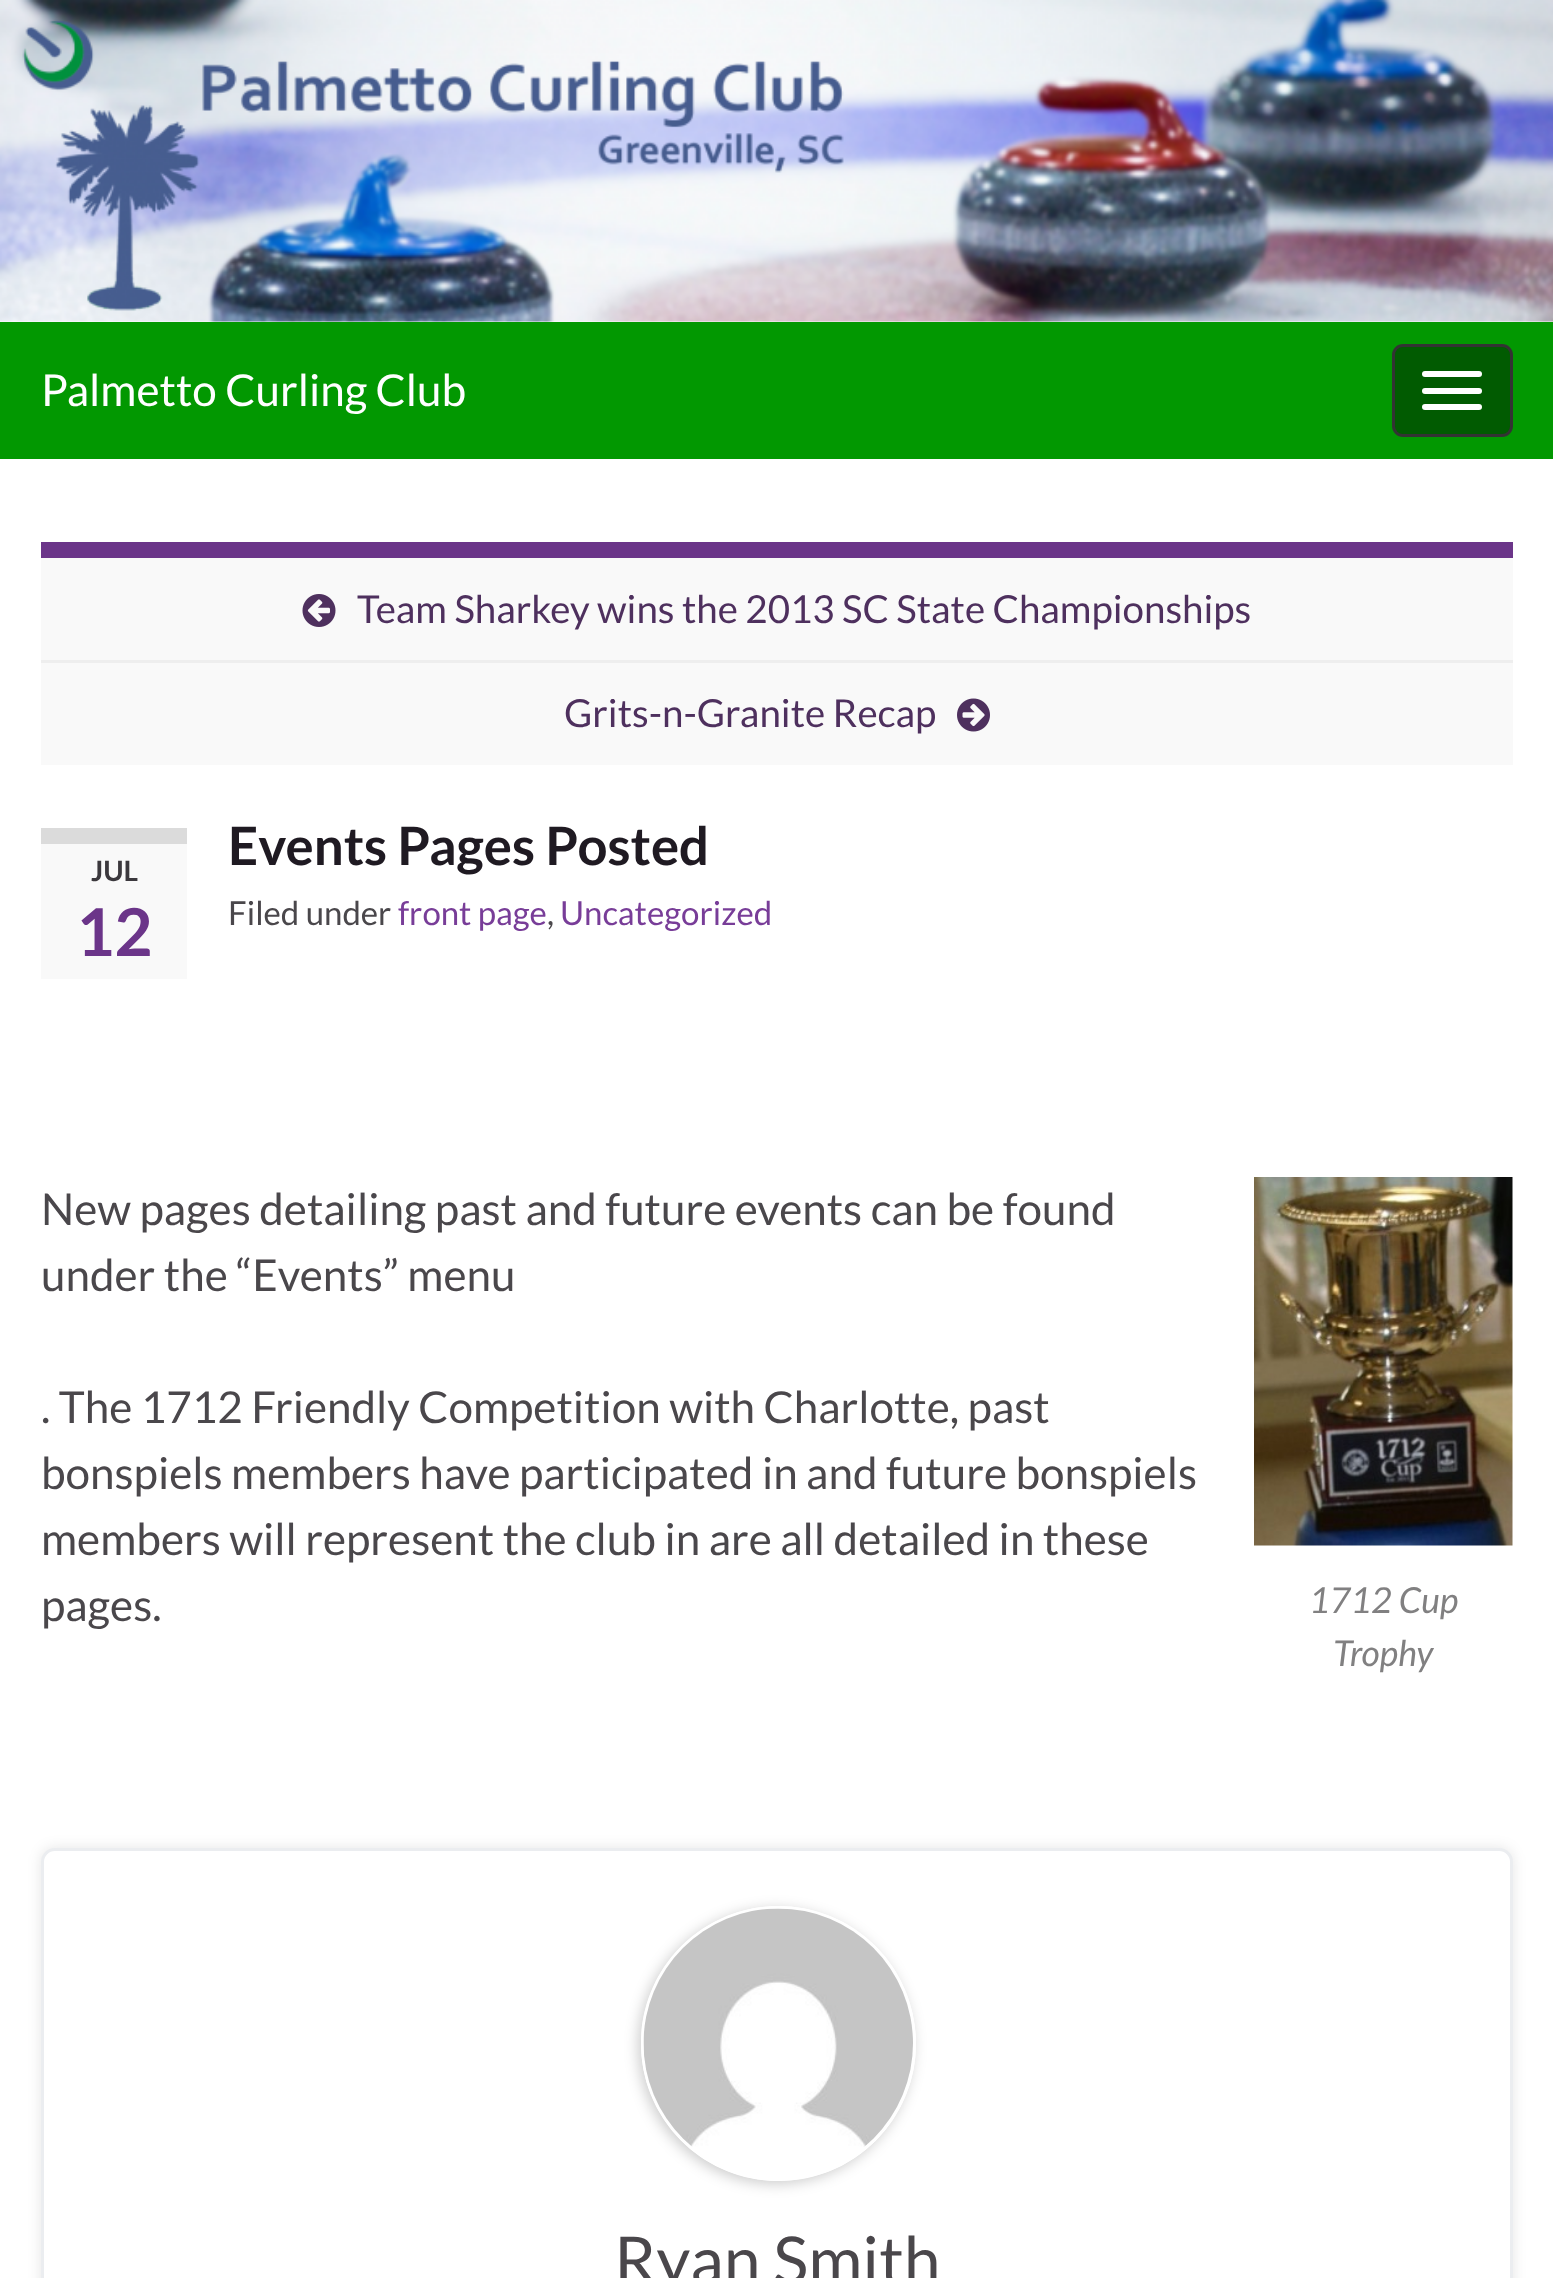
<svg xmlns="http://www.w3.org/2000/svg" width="1553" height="2278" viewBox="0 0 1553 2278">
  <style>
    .t1 { font: 44px Lato; fill: #fff; }
    .t2 { font: 38.5px Lato; fill: #4e305e; }
    .t3 { font: bold 52.75px Lato; fill: #1f1a22; }
    .t4 { font: bold 28px Lato; fill: #3b383d; }
    .t5 { font: bold 66px Lato; fill: #6b3589; }
    .t6 { font: 33px Lato; fill: #4a474b; }
    .t7 { font: 33px Lato; fill: #783d98; }
    .t8 { font: 44px Lato; fill: #4a474b; }
    .t9 { font: italic 35.75px Lato; fill: #818081; }
    .t10 { font: 66px Lato; fill: #4a474b; }
  </style>
  <defs>
    <clipPath id="clip1"><path d="M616 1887H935V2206H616ZM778.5 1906C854.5 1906 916 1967.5 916 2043.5C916 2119.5 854.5 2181 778.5 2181C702.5 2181 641 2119.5 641 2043.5C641 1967.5 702.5 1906 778.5 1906Z" clip-rule="evenodd"/></clipPath>
  </defs>
  <rect width="100%" height="100%" fill="#fff"/>
  <image x="0" y="0" width="1553" height="322" href="images/1.png"/>
  <rect x="0" y="322" width="1553" height="137" fill="#029801"/>
  <text x="41" y="406" class="t1">Palmetto Curling Club</text>
  <rect x="1393.5" y="345.5" width="118" height="90" rx="9.5" fill="#015b01" stroke="#333" stroke-width="3"/>
  <rect x="1422" y="371" width="60" height="6" rx="3" fill="#fff"/>
  <rect x="1422" y="388" width="60" height="6" rx="3" fill="#fff"/>
  <rect x="1422" y="404" width="60" height="6" rx="3" fill="#fff"/>
  <rect x="41" y="558" width="1472" height="207" fill="#f9f9f9"/>
  <rect x="41" y="542" width="1472" height="16" fill="#6b3589"/>
  <image x="302" y="594" width="34" height="33" href="images/2.png"/>
  <text x="357" y="623" class="t2">Team Sharkey wins the 2013 SC State Championships</text>
  <rect x="41" y="660" width="1472" height="3" fill="#eee"/>
  <text x="564" y="727" class="t2">Grits-n-Granite Recap</text>
  <image x="957" y="698" width="33" height="34" href="images/3.png"/>
  <text x="228" y="865" class="t3">Events Pages Posted</text>
  <rect x="41" y="844" width="146" height="135" fill="#f9f9f9"/>
  <rect x="41" y="828" width="146" height="16" fill="#dbdbdb"/>
  <text x="91" y="881" class="t4">JUL</text>
  <text x="76" y="956" class="t5">12</text>
  <text x="228" y="925" class="t6">Filed under</text>
  <text x="398" y="925" class="t7">front page</text>
  <text x="547" y="925" class="t6">,</text>
  <text x="560" y="925" class="t7">Uncategorized</text>
  <text x="41" y="1225" class="t8">New pages detailing past and future events can be found</text>
  <text x="41" y="1291" class="t8">under the “Events” menu</text>
  <text x="41" y="1423" class="t8">. The 1712 Friendly Competition with Charlotte, past</text>
  <text x="41" y="1489" class="t8">bonspiels members have participated in and future bonspiels</text>
  <text x="41" y="1555" class="t8">members will represent the club in are all detailed in these</text>
  <text x="41" y="1621" class="t8">pages.</text>
  <image x="1254" y="1177" width="259" height="369" href="images/4.png"/>
  <text x="1309" y="1613" class="t9">1712 Cup</text>
  <text x="1333" y="1666" class="t9">Trophy</text>
  <rect x="41" y="1848" width="1472" height="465" rx="14" fill="#0000001a" filter="blur(7px)"/>
  <rect x="42.5" y="1849.5" width="1469" height="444" rx="12.5" fill="#fff" stroke="#ebedf0" stroke-width="3"/>
  <g clip-path="url(#clip1)">
    <rect x="638" y="1909" width="275" height="275" rx="137.5" fill="#00000033" filter="blur(7px)"/>
  </g>
  <circle cx="778.5" cy="2043.5" r="136" fill="none" stroke="#fff" stroke-width="3"/>
  <image x="643" y="1908" width="270" height="239" href="images/5.png"/>
  <text x="614" y="2284" class="t10">Ryan Smith</text>
</svg>
